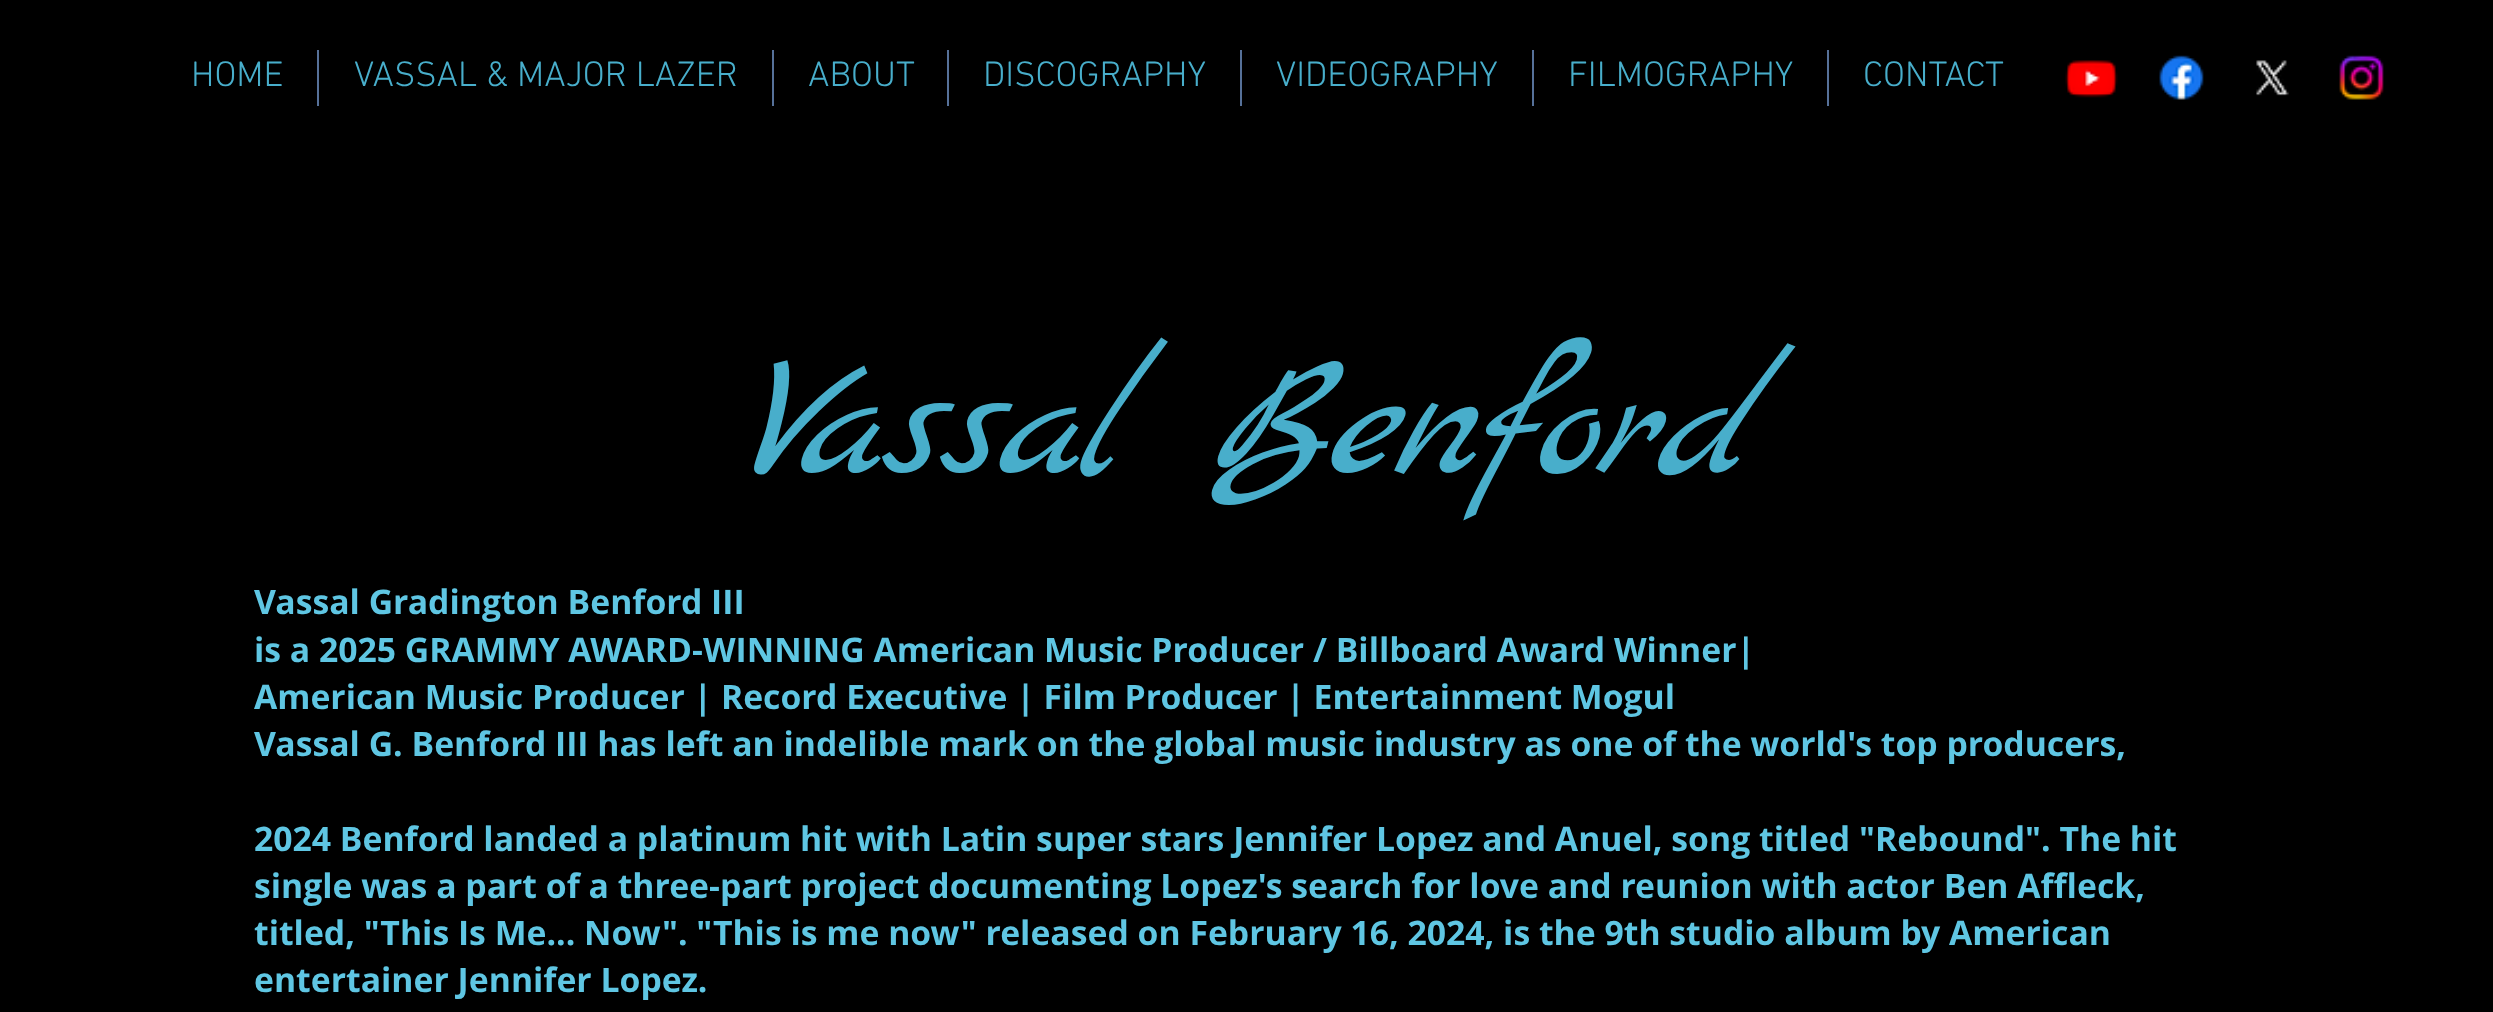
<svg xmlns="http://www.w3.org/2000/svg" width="2493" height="1012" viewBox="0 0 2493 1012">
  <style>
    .t1 { font: 300 36px 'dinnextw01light'; fill: #48aecb; }
    .t2 { font: italic 175.5px Marck Script; fill: #48aecb; }
    .t3 { font: bold 33.75px Open Sans; fill: #5fc6e3; }
  </style>
  <rect width="100%" height="100%" fill="#000"/>
  <text x="191" y="86" class="t1">HOME</text>
  <rect x="317" y="50" width="2" height="56" fill="#567199"/>
  <text x="354" y="86" class="t1">VASSAL &amp; MAJOR LAZER</text>
  <rect x="772" y="50" width="2" height="56" fill="#567199"/>
  <text x="808" y="86" class="t1">ABOUT</text>
  <rect x="947" y="50" width="2" height="56" fill="#567199"/>
  <text x="983" y="86" class="t1">DISCOGRAPHY</text>
  <rect x="1240" y="50" width="2" height="56" fill="#567199"/>
  <text x="1276" y="86" class="t1">VIDEOGRAPHY</text>
  <rect x="1532" y="50" width="2" height="56" fill="#567199"/>
  <text x="1568" y="86" class="t1">FILMOGRAPHY</text>
  <rect x="1827" y="50" width="2" height="56" fill="#567199"/>
  <text x="1863" y="86" class="t1">CONTACT</text>
  <image x="2065" y="60" width="53" height="38" href="images/1.png"/>
  <image x="2159" y="55" width="45" height="45" href="images/2.png"/>
  <image x="2256" y="60" width="33" height="36" href="images/3.png"/>
  <image x="2339" y="55" width="45" height="45" href="images/4.png"/>
  <text x="741" y="473" class="t2">Vassal Benford</text>
  <text x="254" y="614" class="t3">Vassal Gradington Benford III</text>
  <text x="254" y="662" class="t3">is a 2025 GRAMMY AWARD-WINNING American Music Producer / Billboard Award Winner|</text>
  <text x="254" y="709" class="t3">American Music Producer | Record Executive | Film Producer | Entertainment Mogul</text>
  <text x="254" y="756" class="t3">Vassal G. Benford III has left an indelible mark on the global music industry as one of the world's top producers,</text>
  <text x="254" y="851" class="t3">2024 Benford landed a platinum hit with Latin super stars Jennifer Lopez and Anuel, song titled "Rebound". The hit</text>
  <text x="254" y="898" class="t3">single was a part of a three-part project documenting Lopez's search for love and reunion with actor Ben Affleck,</text>
  <text x="254" y="945" class="t3">titled, "This Is Me... Now". "This is me now" released on February 16, 2024, is the 9th studio album by American</text>
  <text x="254" y="992" class="t3">entertainer Jennifer Lopez.</text>
</svg>
